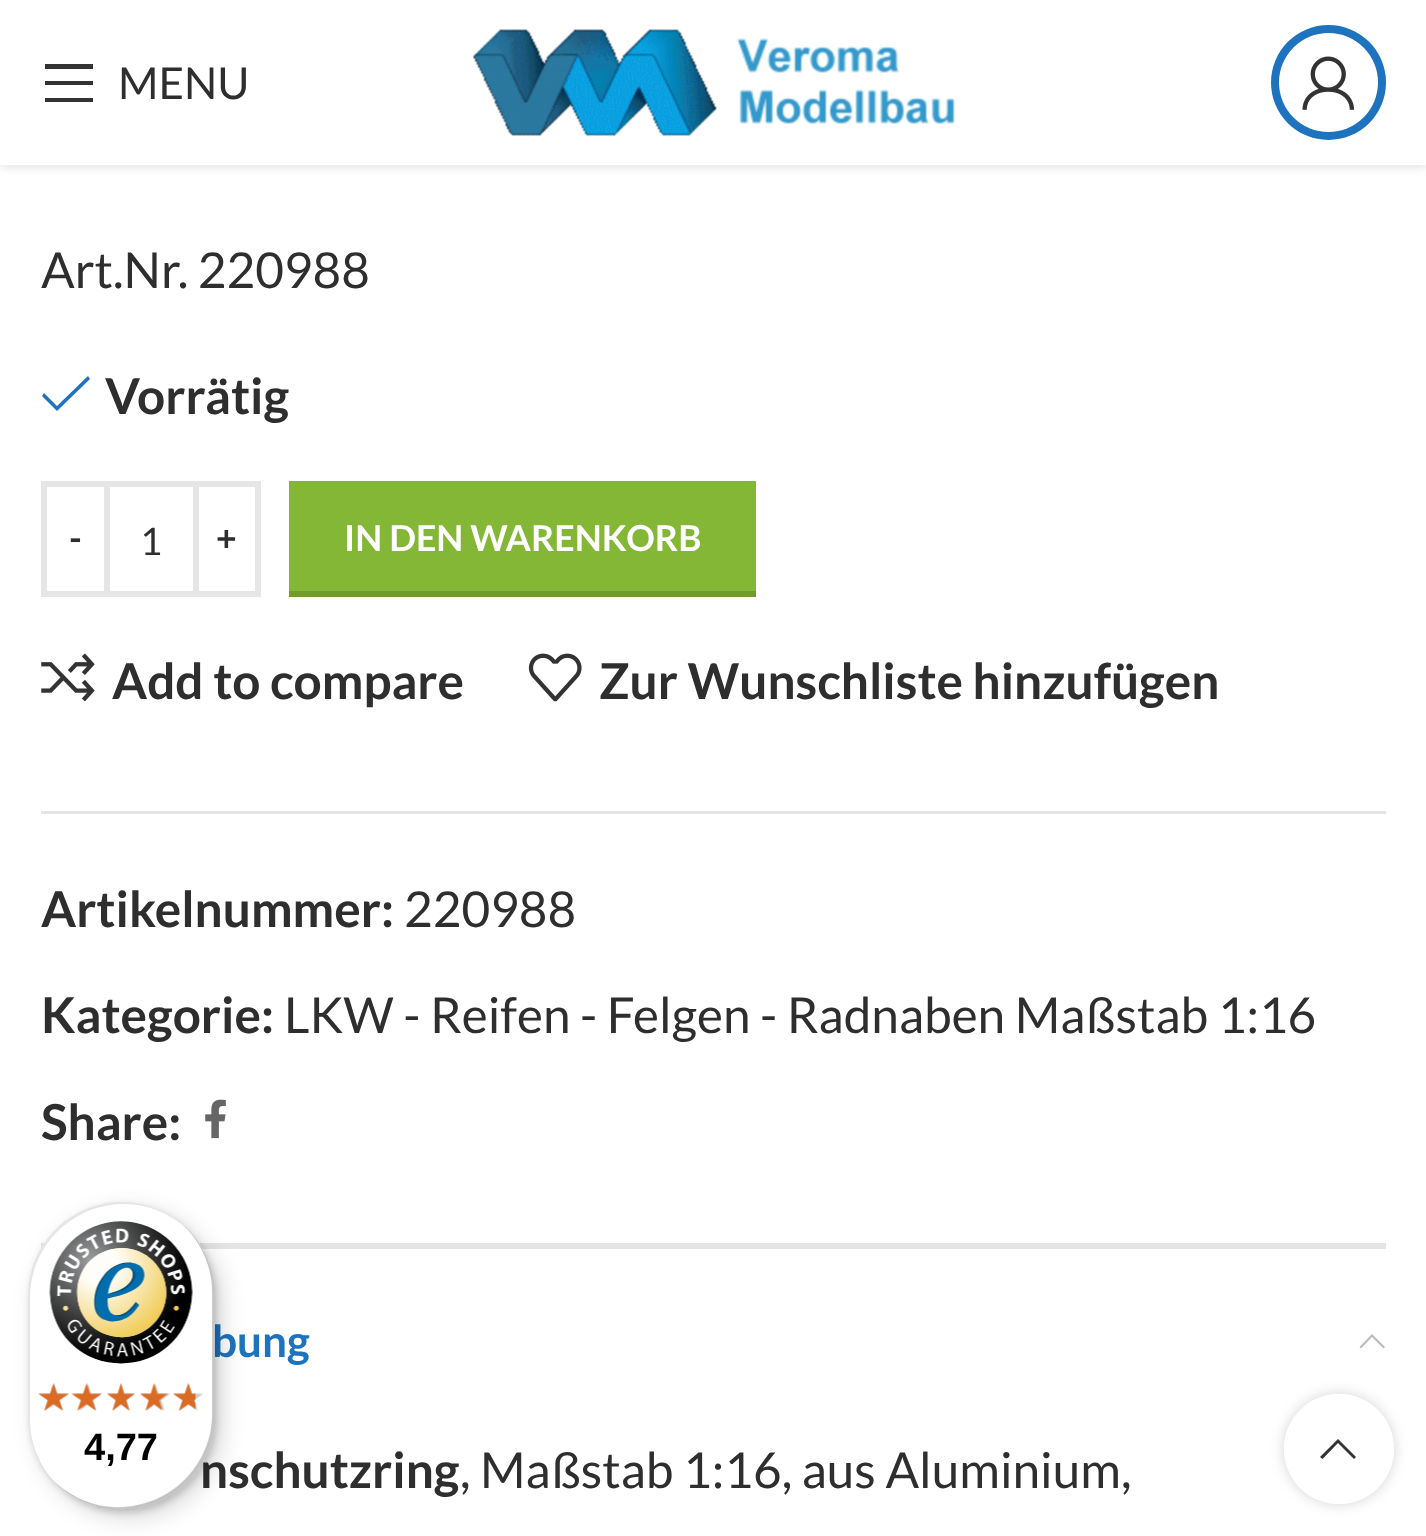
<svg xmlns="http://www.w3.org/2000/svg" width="1426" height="1536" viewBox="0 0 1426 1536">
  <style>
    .t1 { font: 44px Lato; fill: #2e2e2e; }
    .t2 { font: 49.5px Lato; fill: #2e2e2e; }
    .t3 { font: bold 49.5px Lato; fill: #2e2e2e; }
    .t4 { font: bold 35.75px Lato; fill: #2e2e2e; }
    .t5 { font: 38px Lato; fill: #2e2e2e; }
    .t6 { font: bold 35.75px Lato; fill: #fff; }
    .t7 { font: bold 44px Lato; fill: #1e73be; }
    .t8 { font: bold 38px Liberation Sans; fill: #000; }
  </style>
  <defs>
    <clipPath id="clip1"><path d="M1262 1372H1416V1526H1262ZM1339 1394C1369.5 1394 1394 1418.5 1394 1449C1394 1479.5 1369.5 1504 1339 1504C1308.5 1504 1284 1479.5 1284 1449C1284 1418.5 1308.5 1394 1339 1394Z" clip-rule="evenodd"/></clipPath>
  </defs>
  <rect width="100%" height="100%" fill="#fff"/>
  <rect x="0" y="3" width="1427" height="165" fill="#0000001a" filter="blur(4px)"/>
  <rect x="0" y="0" width="1426" height="165" fill="#fff"/>
  <path d="M45 69H93V64H45ZM45 85H93V81H45ZM45 102H93V98H45Z" fill="#333"/>
  <text x="118" y="99" class="t1">MENU</text>
  <image x="472" y="29" width="483" height="107" href="images/1.png"/>
  <circle cx="1328.5" cy="82.5" r="57.5" fill="#1e73be"/>
  <circle cx="1328.5" cy="82.5" r="49.5" fill="#fff"/>
  <image x="1302" y="56" width="52" height="54" href="images/2.png"/>
  <text x="41" y="288" class="t2">Art.Nr. 220988</text>
  <path d="M90 379L88 376L57 406L44 393L42 396L57 411Z" fill="#1e73be"/>
  <text x="105" y="414" class="t3">Vorrätig</text>
  <rect x="44" y="484" width="63" height="110" fill="none" stroke="#e6e6e6" stroke-width="6"/>
  <text x="69" y="551" class="t4">-</text>
  <rect x="110" y="481" width="83" height="6" fill="#e6e6e6"/>
  <rect x="110" y="591" width="83" height="6" fill="#e6e6e6"/>
  <text x="140" y="555" class="t5">1</text>
  <rect x="196" y="484" width="62" height="110" fill="none" stroke="#e6e6e6" stroke-width="6"/>
  <text x="216" y="551" class="t4">+</text>
  <rect x="289" y="481" width="467" height="110" fill="#83b735"/>
  <rect x="289" y="591" width="467" height="6" fill="#6f9c2d"/>
  <text x="344" y="551" class="t6">IN DEN WARENKORB</text>
  <image x="41" y="653" width="54" height="49" href="images/3.png"/>
  <text x="112" y="699" class="t3">Add to compare</text>
  <image x="528" y="653" width="54" height="49" href="images/4.png"/>
  <text x="599" y="699" class="t3">Zur Wunschliste hinzufügen</text>
  <rect x="41" y="811" width="1345" height="3" fill="#e4e4e4"/>
  <text x="41" y="927" class="t3">Artikelnummer:</text>
  <text x="404" y="927" class="t2">220988</text>
  <text x="41" y="1033" class="t3">Kategorie:</text>
  <text x="284" y="1033" class="t2">LKW - Reifen - Felgen - Radnaben Maßstab 1:16</text>
  <text x="41" y="1140" class="t3">Share:</text>
  <image x="205" y="1099" width="21" height="40" href="images/5.png"/>
  <rect x="41" y="1243" width="1345" height="6" fill="#e4e4e4"/>
  <text x="212" y="1357" class="t7">bung</text>
  <path d="M1361 1348.5L1372 1337L1383.5 1348.5L1385 1347L1372 1334L1359.5 1347Z" fill="#bbb"/>
  <text x="200" y="1488" class="t3">nschutzring</text>
  <text x="460" y="1488" class="t2">, Maßstab 1:16, aus Aluminium,</text>
  <g clip-path="url(#clip1)">
    <rect x="1284" y="1394" width="110" height="110" rx="55" fill="#0000002b" filter="blur(7px)"/>
  </g>
  <circle cx="1339" cy="1449" r="55" fill="#ffffffe6"/>
  <path d="M1354 1459L1356 1457L1338 1439L1320 1457L1322.5 1459L1338 1443Z" fill="#333"/>
  <rect x="36" y="1210" width="187" height="308" rx="93.5" fill="#00000026" filter="blur(11px)"/>
  <rect x="30" y="1205" width="187" height="308" rx="93.5" fill="#00000026" filter="blur(3px)"/>
  <rect x="28" y="1202" width="187" height="308" rx="93.5" fill="#fff"/>
  <path d="M124 1204C150 1204 173 1215 190 1232C173 1214 149 1202 122 1202C70 1202 28 1244 28 1296V1416C28 1440 37 1462 51 1478C38 1462 30 1442 30 1419V1298C30 1246 72 1204 124 1204Z" fill="#0000001a"/>
  <path d="M54 1481C71 1499 95 1510 122 1510C173 1510 215 1468 215 1416V1296C215 1268 203 1244 185 1227C202 1244 212 1267 212 1292V1414C212 1465 170 1507 118 1507C93 1507 71 1497 54 1481Z" fill="#00000033"/>
  <path d="M55 1482C72 1499 95 1510 122 1510C173 1510 215 1468 215 1416V1296C215 1267 202 1242 183 1225C201 1242 213 1267 213 1294V1415C213 1466 171 1508 119 1508C94 1508 71 1498 55 1482Z" fill="#32323233"/>
  <path d="M58 1485C75 1501 97 1510 122 1510C173 1510 215 1468 215 1416V1296C215 1268 203 1244 185 1227C202 1244 213 1268 213 1294V1415C213 1467 171 1508 120 1508C96 1508 75 1500 58 1485Z" fill="#ffffff4d"/>
  <image x="49" y="1221" width="144" height="143" href="images/6.png"/>
  <image x="38" y="1383" width="31" height="28" href="images/7.png"/>
  <image x="74" y="1383" width="28" height="28" href="images/8.png"/>
  <image x="107" y="1383" width="28" height="28" href="images/8.png"/>
  <image x="140" y="1383" width="31" height="28" href="images/9.png"/>
  <image x="173" y="1383" width="31" height="28" href="images/9.png"/>
  <image x="38" y="1383" width="31" height="28" href="images/10.png"/>
  <image x="71" y="1383" width="31" height="28" href="images/11.png"/>
  <image x="107" y="1383" width="28" height="28" href="images/12.png"/>
  <image x="140" y="1383" width="28" height="28" href="images/13.png"/>
  <image x="173" y="1383" width="23" height="28" href="images/14.png"/>
  <text x="84" y="1460" class="t8">4,77</text>
</svg>
